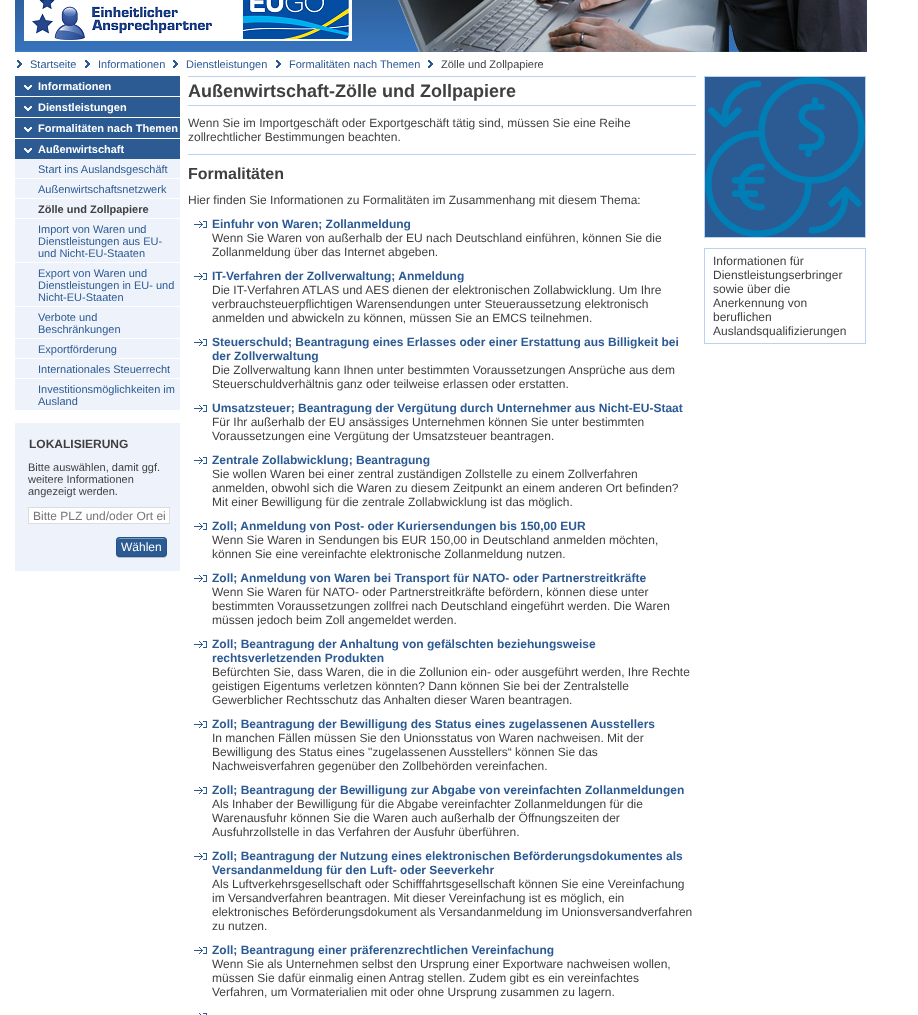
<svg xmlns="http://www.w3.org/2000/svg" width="918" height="1015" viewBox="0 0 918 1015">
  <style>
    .t1 { font: 11px Liberation Sans; fill: #2c5a93; }
    .t2 { font: 11px Liberation Sans; fill: #3f3f3f; }
    .t3 { font: bold 11px Liberation Sans; fill: #fff; }
    .t4 { font: bold 11px Liberation Sans; fill: #3f3f3f; }
    .t5 { font: bold 12px Liberation Sans; fill: #3f3f3f; }
    .t6 { font: 12px Liberation Sans; fill: #757575; }
    .t7 { font: 12px Liberation Sans; fill: #fff; }
    .t8 { font: bold 18px Liberation Sans; fill: #3f3f3f; }
    .t9 { font: 12px Liberation Sans; fill: #3f3f3f; }
    .t10 { font: bold 16px Liberation Sans; fill: #3f3f3f; }
    .t11 { font: bold 12px Liberation Sans; fill: #2c5a93; }
  </style>
  <rect width="100%" height="100%" fill="#fff"/>
  <image x="15" y="0" width="852" height="52" href="images/1.png"/>
  <image x="17" y="60" width="5" height="8" href="images/2.png"/>
  <text x="30" y="68" class="t1">Startseite</text>
  <image x="85" y="60" width="5" height="8" href="images/2.png"/>
  <text x="98" y="68" class="t1">Informationen</text>
  <image x="173" y="60" width="5" height="8" href="images/2.png"/>
  <text x="186" y="68" class="t1">Dienstleistungen</text>
  <image x="276" y="60" width="5" height="8" href="images/2.png"/>
  <text x="289" y="68" class="t1">Formalitäten nach Themen</text>
  <image x="428" y="60" width="5" height="8" href="images/2.png"/>
  <text x="441" y="68" class="t2">Zölle und Zollpapiere</text>
  <rect x="15" y="76" width="165" height="20" fill="#2c5a93"/>
  <image x="24" y="85" width="8" height="5" href="images/3.png"/>
  <text x="38" y="90" class="t3">Informationen</text>
  <rect x="15" y="97" width="165" height="20" fill="#2c5a93"/>
  <image x="24" y="106" width="8" height="5" href="images/3.png"/>
  <text x="38" y="111" class="t3">Dienstleistungen</text>
  <rect x="15" y="118" width="165" height="20" fill="#2c5a93"/>
  <image x="24" y="127" width="8" height="5" href="images/3.png"/>
  <text x="38" y="132" class="t3">Formalitäten nach Themen</text>
  <rect x="15" y="139" width="165" height="20" fill="#2c5a93"/>
  <image x="24" y="148" width="8" height="5" href="images/3.png"/>
  <text x="38" y="153" class="t3">Außenwirtschaft</text>
  <rect x="15" y="159" width="165" height="19" fill="#eef3fb"/>
  <text x="38" y="173" class="t1">Start ins Auslandsgeschäft</text>
  <rect x="15" y="179" width="165" height="19" fill="#eef3fb"/>
  <text x="38" y="193" class="t1">Außenwirtschaftsnetzwerk</text>
  <rect x="15" y="199" width="165" height="19" fill="#eef3fb"/>
  <text x="38" y="213" class="t4">Zölle und Zollpapiere</text>
  <rect x="15" y="219" width="165" height="43" fill="#eef3fb"/>
  <text x="38" y="233" class="t1">Import von Waren und</text>
  <text x="38" y="245" class="t1">Dienstleistungen aus EU-</text>
  <text x="38" y="257" class="t1">und Nicht-EU-Staaten</text>
  <rect x="15" y="263" width="165" height="43" fill="#eef3fb"/>
  <text x="38" y="277" class="t1">Export von Waren und</text>
  <text x="38" y="289" class="t1">Dienstleistungen in EU- und</text>
  <text x="38" y="301" class="t1">Nicht-EU-Staaten</text>
  <rect x="15" y="307" width="165" height="31" fill="#eef3fb"/>
  <text x="38" y="321" class="t1">Verbote und</text>
  <text x="38" y="333" class="t1">Beschränkungen</text>
  <rect x="15" y="339" width="165" height="19" fill="#eef3fb"/>
  <text x="38" y="353" class="t1">Exportförderung</text>
  <rect x="15" y="359" width="165" height="19" fill="#eef3fb"/>
  <text x="38" y="373" class="t1">Internationales Steuerrecht</text>
  <rect x="15" y="379" width="165" height="31" fill="#eef3fb"/>
  <text x="38" y="393" class="t1">Investitionsmöglichkeiten im</text>
  <text x="38" y="405" class="t1">Ausland</text>
  <rect x="15" y="423" width="165" height="148" fill="#eef3fb"/>
  <text x="29" y="448" class="t5">LOKALISIERUNG</text>
  <text x="28" y="471" class="t2">Bitte auswählen, damit ggf.</text>
  <text x="28" y="483" class="t2">weitere Informationen</text>
  <text x="28" y="495" class="t2">angezeigt werden.</text>
  <rect x="28.5" y="507.5" width="141" height="16" fill="#fff" stroke="#ddd"/>
  <text x="33" y="520" class="t6">Bitte PLZ und/oder Ort ei</text>
  <rect x="116" y="538" width="51" height="20" rx="4" fill="#00000033" filter="blur(0.5px)"/>
  <rect x="116" y="537" width="51" height="20" rx="4" fill="#2c5a93"/>
  <path d="M120 539H164C165 539 166 540 166 541C166 536 159 538 156 538H127C122 538 117 536 117 542C117 540 118 539 120 539Z" fill="#809cbe"/>
  <rect x="116.5" y="537.5" width="50" height="19" rx="3.5" fill="none" stroke="#20538d"/>
  <text x="121" y="551" class="t7">Wählen</text>
  <rect x="188" y="76" width="508" height="1" fill="#bbd3ef"/>
  <rect x="188" y="105" width="508" height="1" fill="#bbd3ef"/>
  <text x="188" y="97" class="t8">Außenwirtschaft-Zölle und Zollpapiere</text>
  <rect x="188" y="154" width="508" height="1" fill="#bbd3ef"/>
  <text x="188" y="127" class="t9">Wenn Sie im Importgeschäft oder Exportgeschäft tätig sind, müssen Sie eine Reihe</text>
  <text x="188" y="141" class="t9">zollrechtlicher Bestimmungen beachten.</text>
  <text x="188" y="179" class="t10">Formalitäten</text>
  <text x="188" y="204" class="t9">Hier finden Sie Informationen zu Formalitäten im Zusammenhang mit diesem Thema:</text>
  <image x="194" y="221" width="13" height="7" href="images/4.png"/>
  <text x="212" y="228" class="t11">Einfuhr von Waren; Zollanmeldung</text>
  <text x="212" y="242" class="t9">Wenn Sie Waren von außerhalb der EU nach Deutschland einführen, können Sie die</text>
  <text x="212" y="256" class="t9">Zollanmeldung über das Internet abgeben.</text>
  <image x="194" y="273" width="13" height="7" href="images/4.png"/>
  <text x="212" y="280" class="t11">IT-Verfahren der Zollverwaltung; Anmeldung</text>
  <text x="212" y="294" class="t9">Die IT-Verfahren ATLAS und AES dienen der elektronischen Zollabwicklung. Um Ihre</text>
  <text x="212" y="308" class="t9">verbrauchsteuerpflichtigen Warensendungen unter Steueraussetzung elektronisch</text>
  <text x="212" y="322" class="t9">anmelden und abwickeln zu können, müssen Sie an EMCS teilnehmen.</text>
  <image x="194" y="339" width="13" height="7" href="images/4.png"/>
  <text x="212" y="346" class="t11">Steuerschuld; Beantragung eines Erlasses oder einer Erstattung aus Billigkeit bei</text>
  <text x="212" y="360" class="t11">der Zollverwaltung</text>
  <text x="212" y="374" class="t9">Die Zollverwaltung kann Ihnen unter bestimmten Voraussetzungen Ansprüche aus dem</text>
  <text x="212" y="388" class="t9">Steuerschuldverhältnis ganz oder teilweise erlassen oder erstatten.</text>
  <image x="194" y="405" width="13" height="7" href="images/4.png"/>
  <text x="212" y="412" class="t11">Umsatzsteuer; Beantragung der Vergütung durch Unternehmer aus Nicht-EU-Staat</text>
  <text x="212" y="426" class="t9">Für Ihr außerhalb der EU ansässiges Unternehmen können Sie unter bestimmten</text>
  <text x="212" y="440" class="t9">Voraussetzungen eine Vergütung der Umsatzsteuer beantragen.</text>
  <image x="194" y="457" width="13" height="7" href="images/4.png"/>
  <text x="212" y="464" class="t11">Zentrale Zollabwicklung; Beantragung</text>
  <text x="212" y="478" class="t9">Sie wollen Waren bei einer zentral zuständigen Zollstelle zu einem Zollverfahren</text>
  <text x="212" y="492" class="t9">anmelden, obwohl sich die Waren zu diesem Zeitpunkt an einem anderen Ort befinden?</text>
  <text x="212" y="506" class="t9">Mit einer Bewilligung für die zentrale Zollabwicklung ist das möglich.</text>
  <image x="194" y="523" width="13" height="7" href="images/4.png"/>
  <text x="212" y="530" class="t11">Zoll; Anmeldung von Post- oder Kuriersendungen bis 150,00 EUR</text>
  <text x="212" y="544" class="t9">Wenn Sie Waren in Sendungen bis EUR 150,00 in Deutschland anmelden möchten,</text>
  <text x="212" y="558" class="t9">können Sie eine vereinfachte elektronische Zollanmeldung nutzen.</text>
  <image x="194" y="575" width="13" height="7" href="images/4.png"/>
  <text x="212" y="582" class="t11">Zoll; Anmeldung von Waren bei Transport für NATO- oder Partnerstreitkräfte</text>
  <text x="212" y="596" class="t9">Wenn Sie Waren für NATO- oder Partnerstreitkräfte befördern, können diese unter</text>
  <text x="212" y="610" class="t9">bestimmten Voraussetzungen zollfrei nach Deutschland eingeführt werden. Die Waren</text>
  <text x="212" y="624" class="t9">müssen jedoch beim Zoll angemeldet werden.</text>
  <image x="194" y="641" width="13" height="7" href="images/4.png"/>
  <text x="212" y="648" class="t11">Zoll; Beantragung der Anhaltung von gefälschten beziehungsweise</text>
  <text x="212" y="662" class="t11">rechtsverletzenden Produkten</text>
  <text x="212" y="676" class="t9">Befürchten Sie, dass Waren, die in die Zollunion ein- oder ausgeführt werden, Ihre Rechte</text>
  <text x="212" y="690" class="t9">geistigen Eigentums verletzen könnten? Dann können Sie bei der Zentralstelle</text>
  <text x="212" y="704" class="t9">Gewerblicher Rechtsschutz das Anhalten dieser Waren beantragen.</text>
  <image x="194" y="721" width="13" height="7" href="images/4.png"/>
  <text x="212" y="728" class="t11">Zoll; Beantragung der Bewilligung des Status eines zugelassenen Ausstellers</text>
  <text x="212" y="742" class="t9">In manchen Fällen müssen Sie den Unionsstatus von Waren nachweisen. Mit der</text>
  <text x="212" y="756" class="t9">Bewilligung des Status eines "zugelassenen Ausstellers“ können Sie das</text>
  <text x="212" y="770" class="t9">Nachweisverfahren gegenüber den Zollbehörden vereinfachen.</text>
  <image x="194" y="787" width="13" height="7" href="images/4.png"/>
  <text x="212" y="794" class="t11">Zoll; Beantragung der Bewilligung zur Abgabe von vereinfachten Zollanmeldungen</text>
  <text x="212" y="808" class="t9">Als Inhaber der Bewilligung für die Abgabe vereinfachter Zollanmeldungen für die</text>
  <text x="212" y="822" class="t9">Warenausfuhr können Sie die Waren auch außerhalb der Öffnungszeiten der</text>
  <text x="212" y="836" class="t9">Ausfuhrzollstelle in das Verfahren der Ausfuhr überführen.</text>
  <image x="194" y="853" width="13" height="7" href="images/4.png"/>
  <text x="212" y="860" class="t11">Zoll; Beantragung der Nutzung eines elektronischen Beförderungsdokumentes als</text>
  <text x="212" y="874" class="t11">Versandanmeldung für den Luft- oder Seeverkehr</text>
  <text x="212" y="888" class="t9">Als Luftverkehrsgesellschaft oder Schifffahrtsgesellschaft können Sie eine Vereinfachung</text>
  <text x="212" y="902" class="t9">im Versandverfahren beantragen. Mit dieser Vereinfachung ist es möglich, ein</text>
  <text x="212" y="916" class="t9">elektronisches Beförderungsdokument als Versandanmeldung im Unionsversandverfahren</text>
  <text x="212" y="930" class="t9">zu nutzen.</text>
  <image x="194" y="947" width="13" height="7" href="images/4.png"/>
  <text x="212" y="954" class="t11">Zoll; Beantragung einer präferenzrechtlichen Vereinfachung</text>
  <text x="212" y="968" class="t9">Wenn Sie als Unternehmen selbst den Ursprung einer Exportware nachweisen wollen,</text>
  <text x="212" y="982" class="t9">müssen Sie dafür einmalig einen Antrag stellen. Zudem gibt es ein vereinfachtes</text>
  <text x="212" y="996" class="t9">Verfahren, um Vormaterialien mit oder ohne Ursprung zusammen zu lagern.</text>
  <image x="199" y="1013" width="8" height="2" href="images/5.png"/>
  <rect x="704.5" y="76.5" width="161" height="161" fill="#2c5a93" stroke="#bbd3ef"/>
  <image x="705" y="77" width="160" height="160" href="images/6.png"/>
  <rect x="704.5" y="248.5" width="161" height="95" fill="none" stroke="#bbd3ef"/>
  <text x="713" y="265" class="t9">Informationen für</text>
  <text x="713" y="279" class="t9">Dienstleistungserbringer</text>
  <text x="713" y="293" class="t9">sowie über die</text>
  <text x="713" y="307" class="t9">Anerkennung von</text>
  <text x="713" y="321" class="t9">beruflichen</text>
  <text x="713" y="335" class="t9">Auslandsqualifizierungen</text>
</svg>
